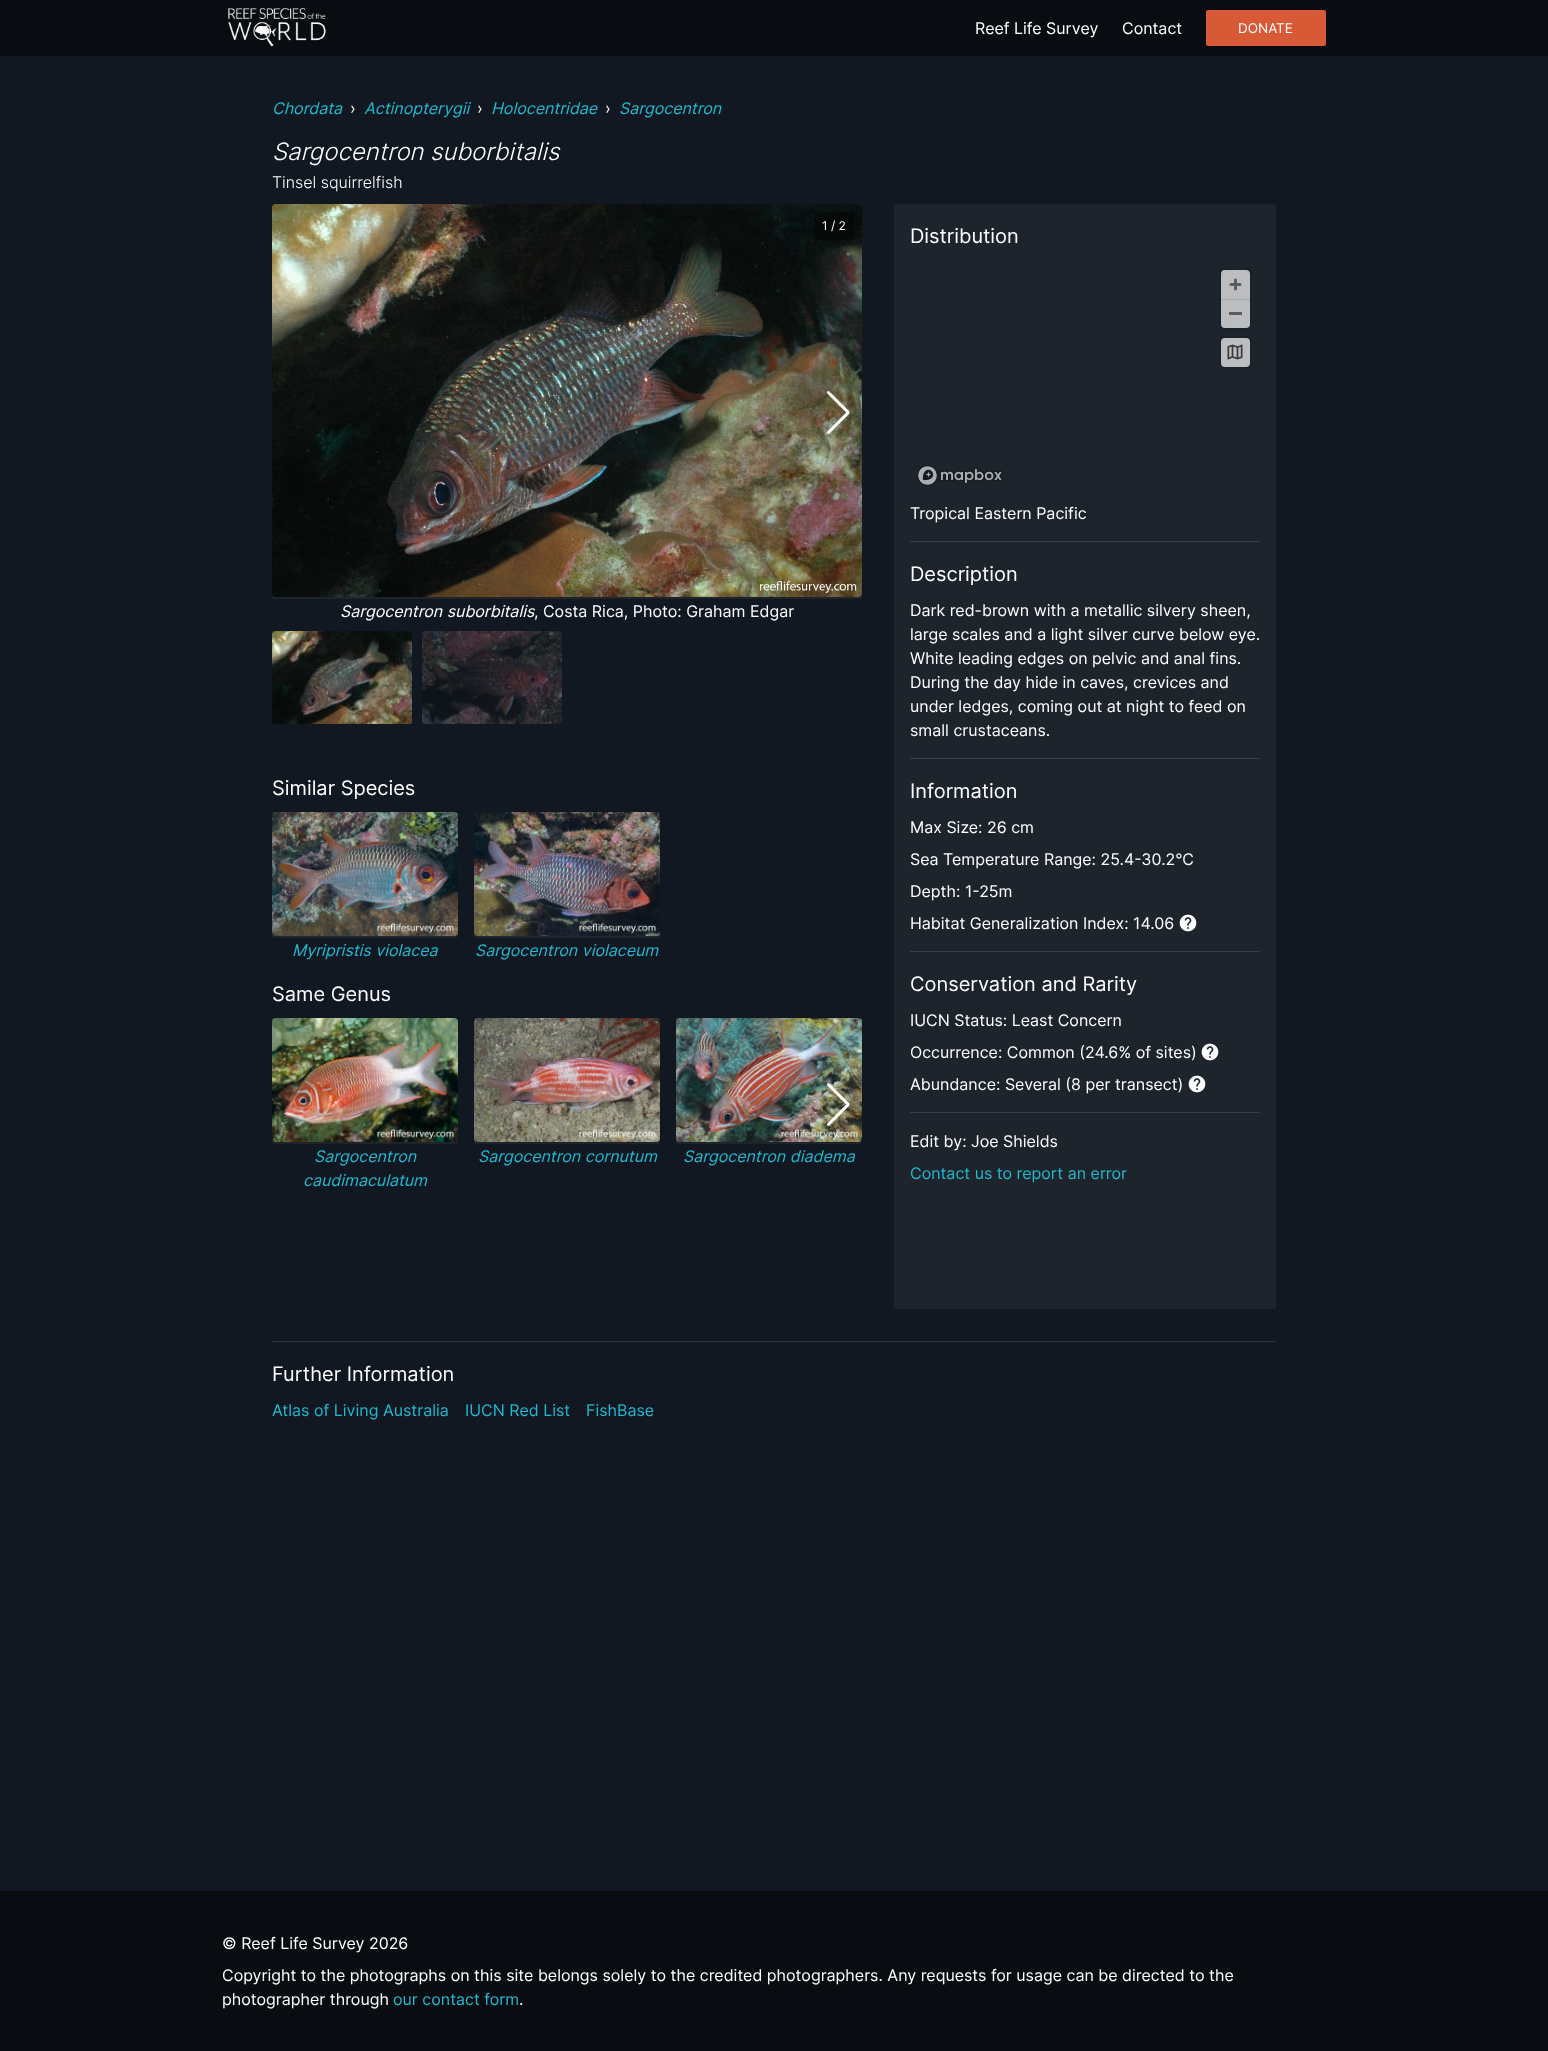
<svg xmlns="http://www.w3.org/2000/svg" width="1548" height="2051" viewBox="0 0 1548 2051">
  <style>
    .t1 { font: 16px Inter; fill: #fff; }
    .t2 { font: 13.5px Inter; fill: #fff; }
    .t3 { font: italic 16px Inter; fill: #22b8cf; }
    .t4 { font: italic 300 24px Inter; fill: #fff; }
    .t5 { font: 300 16px Inter; fill: #fff; }
    .t6 { font: 12px Inter; fill: #fff; }
    .t7 { font: italic 16px Inter; fill: #fff; }
    .t8 { font: 20px Inter; fill: #fff; }
    .t9 { font: 16px Inter; fill: #22b8cf; }
  </style>
  <rect width="100%" height="100%" fill="#111821"/>
  <rect x="0" y="0" width="1548" height="56" fill="#090d12"/>
  <image x="228" y="7" width="98" height="40" href="images/1.png"/>
  <text x="975" y="34" class="t1">Reef Life Survey</text>
  <text x="1122" y="34" class="t1">Contact</text>
  <rect x="1206" y="10" width="120" height="36" rx="2" fill="#d85935"/>
  <text x="1238" y="33" class="t2">DONATE</text>
  <text x="272" y="114" class="t3">Chordata</text>
  <text x="350" y="114" class="t1">›</text>
  <text x="364" y="114" class="t3">Actinopterygii</text>
  <text x="477" y="114" class="t1">›</text>
  <text x="491" y="114" class="t3">Holocentridae</text>
  <text x="605" y="114" class="t1">›</text>
  <text x="619" y="114" class="t3">Sargocentron</text>
  <text x="272" y="160" class="t4">Sargocentron suborbitalis</text>
  <text x="272" y="188" class="t5">Tinsel squirrelfish</text>
  <rect x="272" y="204" width="590" height="395" rx="2" fill="#1d242c"/>
  <image x="272" y="204" width="590" height="393" href="images/3.png"/>
  <rect x="814" y="212" width="40" height="28" fill="#0000004d"/>
  <text x="822" y="230" class="t6">1 / 2</text>
  <image x="826" y="391" width="24" height="43" href="images/2.png"/>
  <text x="340" y="617" class="t7">Sargocentron suborbitalis</text>
  <text x="534" y="617" class="t1">, Costa Rica, Photo: Graham Edgar</text>
  <rect x="272" y="631" width="140" height="93" rx="2" fill="#1d242c"/>
  <image x="272" y="631" width="140" height="93" href="images/4.png"/>
  <rect x="422" y="631" width="140" height="93" rx="2" fill="#161d25"/>
  <image x="422" y="631" width="140" height="93" href="images/5.png"/>
  <rect x="894" y="204" width="382" height="1105" rx="2" fill="#1d242c"/>
  <text x="910" y="243" class="t8">Distribution</text>
  <rect x="1220" y="269" width="31" height="60" rx="5" fill="none" stroke="#1b2129" stroke-width="2"/>
  <rect x="1221" y="270" width="29" height="58" rx="4" fill="#bbbdc0"/>
  <image x="1229" y="278" width="13" height="13" href="images/6.png"/>
  <rect x="1221" y="299" width="29" height="1" fill="#a3a6a8"/>
  <rect x="1229" y="312" width="13" height="3" fill="#5c5c5d"/>
  <rect x="1220" y="337" width="31" height="31" rx="5" fill="none" stroke="#1b2129" stroke-width="2"/>
  <rect x="1221" y="338" width="29" height="29" rx="4" fill="#bbbdc0"/>
  <image x="1227" y="344" width="16" height="16" href="images/7.png"/>
  <image x="917" y="465" width="86" height="21" href="images/8.png"/>
  <text x="910" y="519" class="t1">Tropical Eastern Pacific</text>
  <rect x="910" y="541" width="350" height="1" fill="#383e45"/>
  <text x="910" y="581" class="t8">Description</text>
  <text x="910" y="616" class="t1">Dark red-brown with a metallic silvery sheen,</text>
  <text x="910" y="640" class="t1">large scales and a light silver curve below eye.</text>
  <text x="910" y="664" class="t1">White leading edges on pelvic and anal fins.</text>
  <text x="910" y="688" class="t1">During the day hide in caves, crevices and</text>
  <text x="910" y="712" class="t1">under ledges, coming out at night to feed on</text>
  <text x="910" y="736" class="t1">small crustaceans.</text>
  <rect x="910" y="758" width="350" height="1" fill="#383e45"/>
  <text x="910" y="798" class="t8">Information</text>
  <text x="910" y="833" class="t1">Max Size: 26 cm</text>
  <text x="910" y="865" class="t1">Sea Temperature Range: 25.4-30.2°C</text>
  <text x="910" y="897" class="t1">Depth: 1-25m</text>
  <text x="910" y="929" class="t1">Habitat Generalization Index: 14.06</text>
  <image x="1179" y="914" width="18" height="18" href="images/9.png"/>
  <rect x="910" y="951" width="350" height="1" fill="#383e45"/>
  <text x="910" y="991" class="t8">Conservation and Rarity</text>
  <text x="910" y="1026" class="t1">IUCN Status: Least Concern</text>
  <text x="910" y="1058" class="t1">Occurrence: Common (24.6% of sites)</text>
  <image x="1201" y="1043" width="18" height="18" href="images/9.png"/>
  <text x="910" y="1090" class="t1">Abundance: Several (8 per transect)</text>
  <image x="1188" y="1075" width="18" height="18" href="images/9.png"/>
  <rect x="910" y="1112" width="350" height="1" fill="#383e45"/>
  <text x="910" y="1147" class="t1">Edit by: Joe Shields</text>
  <text x="910" y="1179" class="t9">Contact us to report an error</text>
  <text x="272" y="795" class="t8">Similar Species</text>
  <rect x="272" y="812" width="186" height="126" rx="2" fill="#1d242c"/>
  <image x="272" y="812" width="186" height="124" href="images/10.png"/>
  <text x="292" y="956" class="t3">Myripristis violacea</text>
  <rect x="474" y="812" width="186" height="126" rx="2" fill="#1d242c"/>
  <image x="474" y="812" width="186" height="124" href="images/11.png"/>
  <text x="475" y="956" class="t3">Sargocentron violaceum</text>
  <text x="272" y="1001" class="t8">Same Genus</text>
  <rect x="676" y="1018" width="186" height="126" rx="2" fill="#1d242c"/>
  <image x="676" y="1018" width="186" height="124" href="images/15.png"/>
  <image x="826" y="1083" width="24" height="43" href="images/12.png"/>
  <rect x="272" y="1018" width="186" height="126" rx="2" fill="#1d242c"/>
  <image x="272" y="1018" width="186" height="124" href="images/13.png"/>
  <text x="314" y="1162" class="t3">Sargocentron</text>
  <text x="303" y="1186" class="t3">caudimaculatum</text>
  <rect x="474" y="1018" width="186" height="126" rx="2" fill="#1d242c"/>
  <image x="474" y="1018" width="186" height="124" href="images/14.png"/>
  <text x="478" y="1162" class="t3">Sargocentron cornutum</text>
  <text x="683" y="1162" class="t3">Sargocentron diadema</text>
  <rect x="272" y="1341" width="1004" height="1" fill="#2e343c"/>
  <text x="272" y="1381" class="t8">Further Information</text>
  <text x="272" y="1416" class="t9">Atlas of Living Australia</text>
  <text x="465" y="1416" class="t9">IUCN Red List</text>
  <text x="586" y="1416" class="t9">FishBase</text>
  <rect x="0" y="1891" width="1548" height="160" fill="#090d12"/>
  <text x="222" y="1949" class="t1">© Reef Life Survey 2026</text>
  <text x="222" y="1981" class="t1">Copyright to the photographs on this site belongs solely to the credited photographers. Any requests for usage can be directed to the</text>
  <text x="222" y="2005" class="t1">photographer through</text>
  <text x="393" y="2005" class="t9">our contact form</text>
  <text x="519" y="2005" class="t1">.</text>
</svg>
